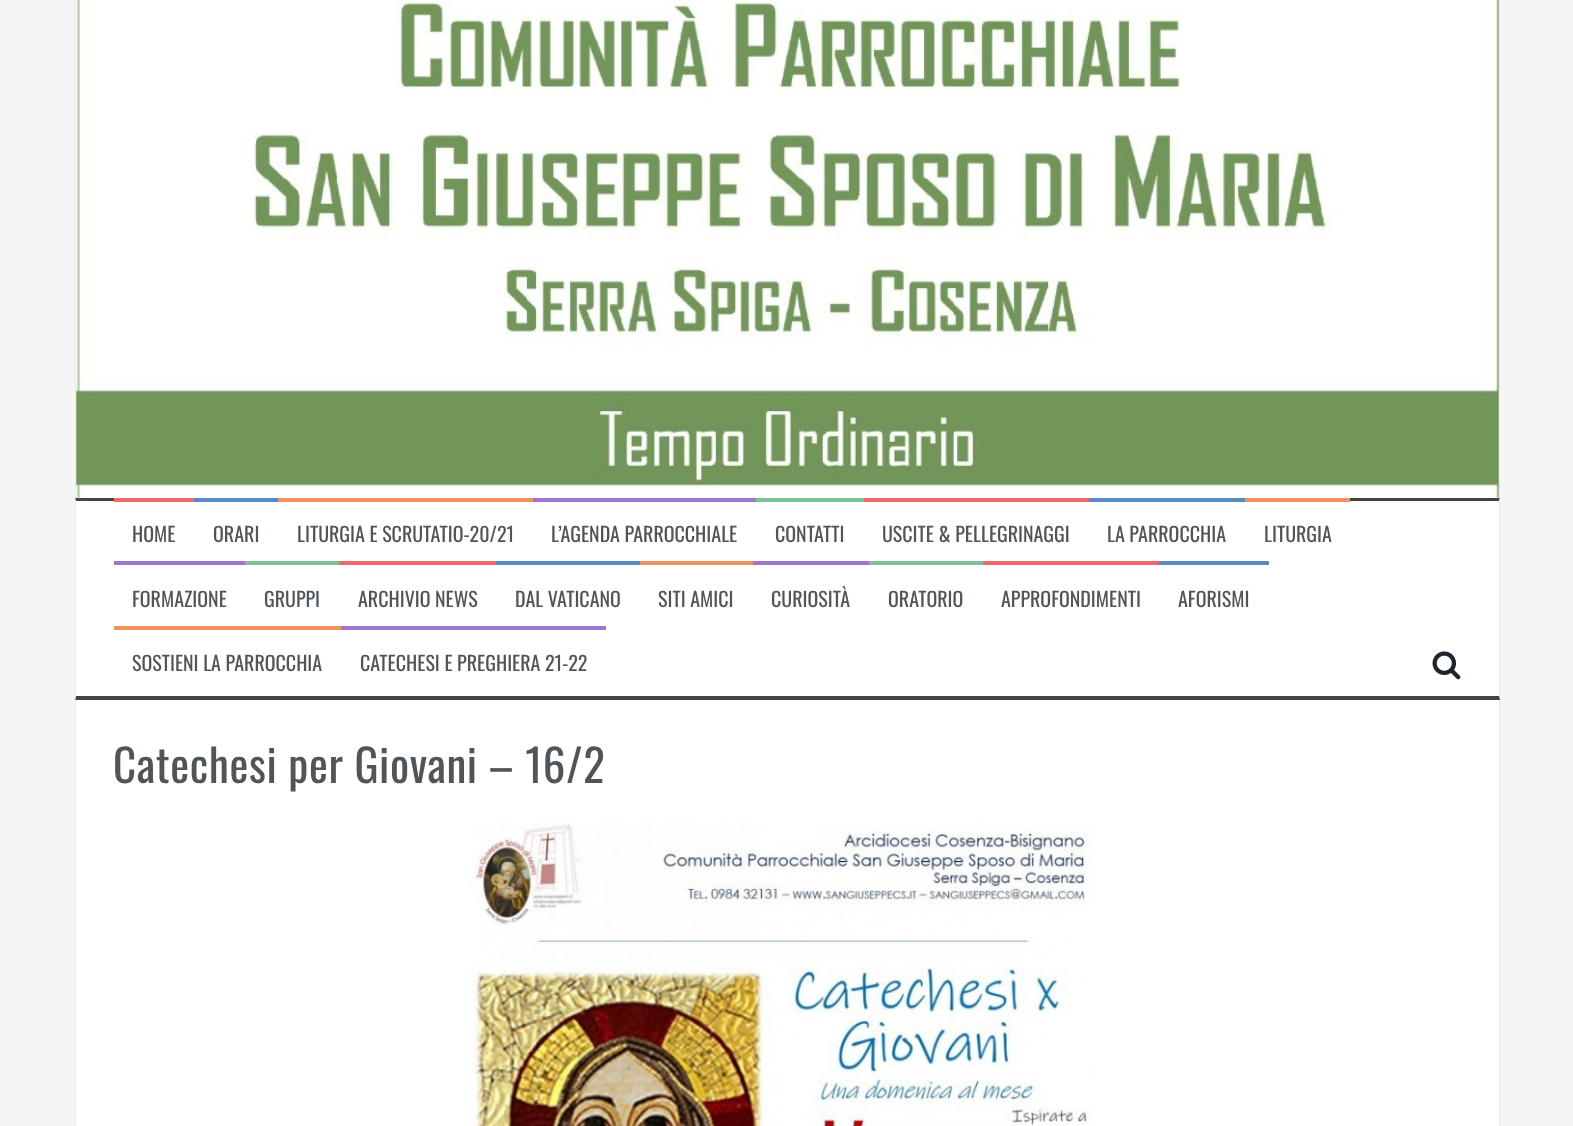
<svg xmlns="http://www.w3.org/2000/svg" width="1573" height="1126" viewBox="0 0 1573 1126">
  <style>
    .t1 { font: 20px Oswald; fill: #505559; }
    .t2 { font: 45px Oswald; letter-spacing: 0.6px; fill: #505559; }
  </style>
  <rect width="100%" height="100%" fill="#f5f5f5"/>
  <image x="76" y="0" width="1423" height="498" href="images/1.png"/>
  <rect x="1499" y="0" width="1" height="498" fill="#ebebeb"/>
  <rect x="75" y="0" width="1" height="498" fill="#ebebeb"/>
  <rect x="76" y="501" width="1423" height="195" fill="#fff"/>
  <path d="M75 498H1500L1499 501H76Z" fill="#444"/>
  <path d="M1500 498V700L1499 696V501Z" fill="#ebebeb"/>
  <path d="M1500 700H75L76 696H1499Z" fill="#444"/>
  <path d="M75 700V498L76 501V696Z" fill="#ebebeb"/>
  <rect x="114" y="498" width="80" height="4" fill="#f0696a"/>
  <text x="132" y="542" class="t1">HOME</text>
  <rect x="194" y="498" width="84" height="4" fill="#5b8ac0"/>
  <text x="213" y="542" class="t1">ORARI</text>
  <rect x="278" y="498" width="255" height="4" fill="#ed945d"/>
  <text x="297" y="542" class="t1">LITURGIA E SCRUTATIO-20/21</text>
  <rect x="533" y="498" width="223" height="4" fill="#9f76ca"/>
  <text x="551" y="542" class="t1">L’AGENDA PARROCCHIALE</text>
  <rect x="756" y="498" width="108" height="4" fill="#7fc09b"/>
  <text x="775" y="542" class="t1">CONTATTI</text>
  <rect x="864" y="498" width="225" height="4" fill="#f0696a"/>
  <text x="882" y="542" class="t1">USCITE &amp; PELLEGRINAGGI</text>
  <rect x="1089" y="498" width="156" height="4" fill="#5b8ac0"/>
  <text x="1107" y="542" class="t1">LA PARROCCHIA</text>
  <rect x="1245" y="498" width="105" height="4" fill="#ed945d"/>
  <text x="1264" y="542" class="t1">LITURGIA</text>
  <rect x="114" y="561" width="131" height="4" fill="#9f76ca"/>
  <text x="132" y="607" class="t1">FORMAZIONE</text>
  <rect x="245" y="561" width="94" height="4" fill="#7fc09b"/>
  <text x="264" y="607" class="t1">GRUPPI</text>
  <rect x="339" y="561" width="157" height="4" fill="#f0696a"/>
  <text x="358" y="607" class="t1">ARCHIVIO NEWS</text>
  <rect x="496" y="561" width="144" height="4" fill="#5b8ac0"/>
  <text x="515" y="607" class="t1">DAL VATICANO</text>
  <rect x="640" y="561" width="113" height="4" fill="#ed945d"/>
  <text x="658" y="607" class="t1">SITI AMICI</text>
  <rect x="753" y="561" width="116" height="4" fill="#9f76ca"/>
  <text x="771" y="607" class="t1">CURIOSITÀ</text>
  <rect x="869" y="561" width="114" height="4" fill="#7fc09b"/>
  <text x="888" y="607" class="t1">ORATORIO</text>
  <rect x="983" y="561" width="176" height="4" fill="#f0696a"/>
  <text x="1001" y="607" class="t1">APPROFONDIMENTI</text>
  <rect x="1159" y="561" width="110" height="4" fill="#5b8ac0"/>
  <text x="1178" y="607" class="t1">AFORISMI</text>
  <rect x="114" y="626" width="227" height="4" fill="#ed945d"/>
  <text x="132" y="671" class="t1">SOSTIENI LA PARROCCHIA</text>
  <rect x="341" y="626" width="265" height="4" fill="#9f76ca"/>
  <text x="360" y="671" class="t1">CATECHESI E PREGHIERA 21-22</text>
  <image x="1432" y="651" width="29" height="29" href="images/2.png"/>
  <rect x="76" y="700" width="1423" height="426" fill="#fff"/>
  <rect x="1499" y="700" width="1" height="426" fill="#ebebeb"/>
  <rect x="75" y="700" width="1" height="426" fill="#ebebeb"/>
  <text x="113" y="783" class="t2">Catechesi per Giovani – 16/2</text>
  <image x="468" y="822" width="628" height="304" href="images/3.png"/>
</svg>
